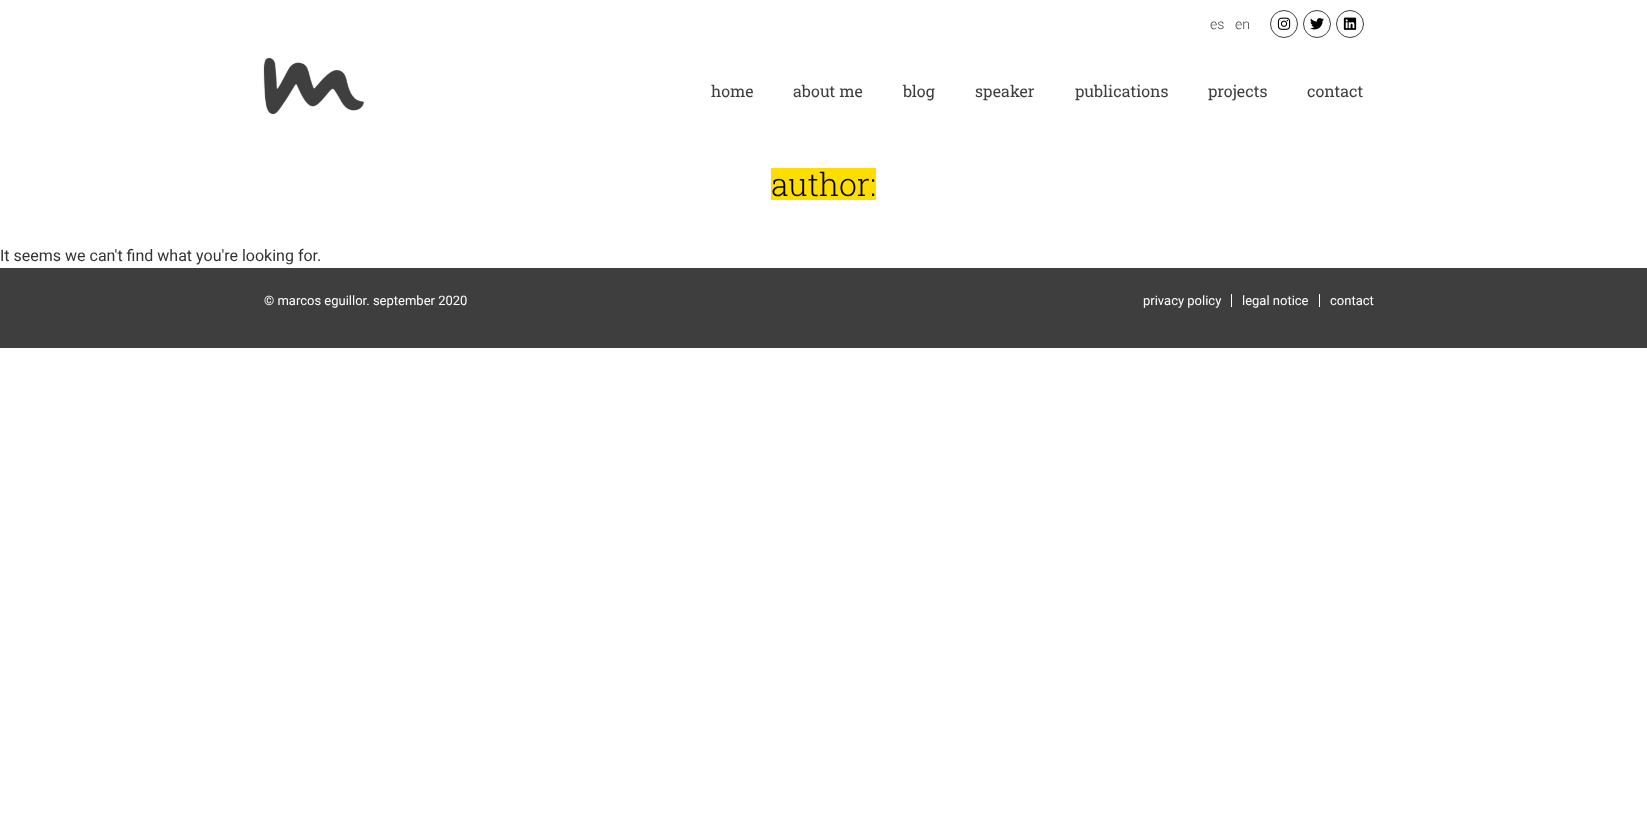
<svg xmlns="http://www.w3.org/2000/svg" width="1647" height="816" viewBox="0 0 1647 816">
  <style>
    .t1 { font: 300 14px Roboto; fill: #3f3f3f; }
    .t2 { font: 16px Roboto Slab; fill: #3f3f3f; }
    .t3 { font: 300 32px Roboto Slab; fill: #000; }
    .t4 { font: 16px Roboto; fill: #333; }
    .t5 { font: 13px Roboto; fill: #fff; }
  </style>
  <rect width="100%" height="100%" fill="#fff"/>
  <text x="1210" y="29" class="t1">es</text>
  <text x="1235" y="29" class="t1">en</text>
  <circle cx="1284" cy="24" r="13.5" fill="none" stroke="#3f3f3f"/>
  <image x="1277" y="17" width="14" height="13" href="images/1.png"/>
  <circle cx="1317" cy="24" r="13.5" fill="none" stroke="#3f3f3f"/>
  <image x="1310" y="18" width="14" height="12" href="images/2.png"/>
  <circle cx="1350" cy="24" r="13.5" fill="none" stroke="#3f3f3f"/>
  <image x="1343" y="17" width="14" height="13" href="images/3.png"/>
  <image x="263" y="58" width="101" height="56" href="images/4.png"/>
  <text x="711" y="97" class="t2">home</text>
  <text x="793" y="97" class="t2">about me</text>
  <text x="903" y="97" class="t2">blog</text>
  <text x="975" y="97" class="t2">speaker</text>
  <text x="1075" y="97" class="t2">publications</text>
  <text x="1208" y="97" class="t2">projects</text>
  <text x="1307" y="97" class="t2">contact</text>
  <rect x="771" y="168" width="105" height="32" fill="#fedd00"/>
  <text x="771" y="196" class="t3">author:</text>
  <text x="0" y="261" class="t4">It seems we can't find what you're looking for.</text>
  <rect x="0" y="268" width="1647" height="80" fill="#3e3e3e"/>
  <text x="264" y="305" class="t5">© marcos eguillor. september 2020</text>
  <text x="1143" y="305" class="t5">privacy policy</text>
  <rect x="1319" y="294" width="1" height="13" fill="#fff"/>
  <rect x="1231" y="294" width="1" height="13" fill="#fff"/>
  <text x="1242" y="305" class="t5">legal notice</text>
  <text x="1330" y="305" class="t5">contact</text>
</svg>
